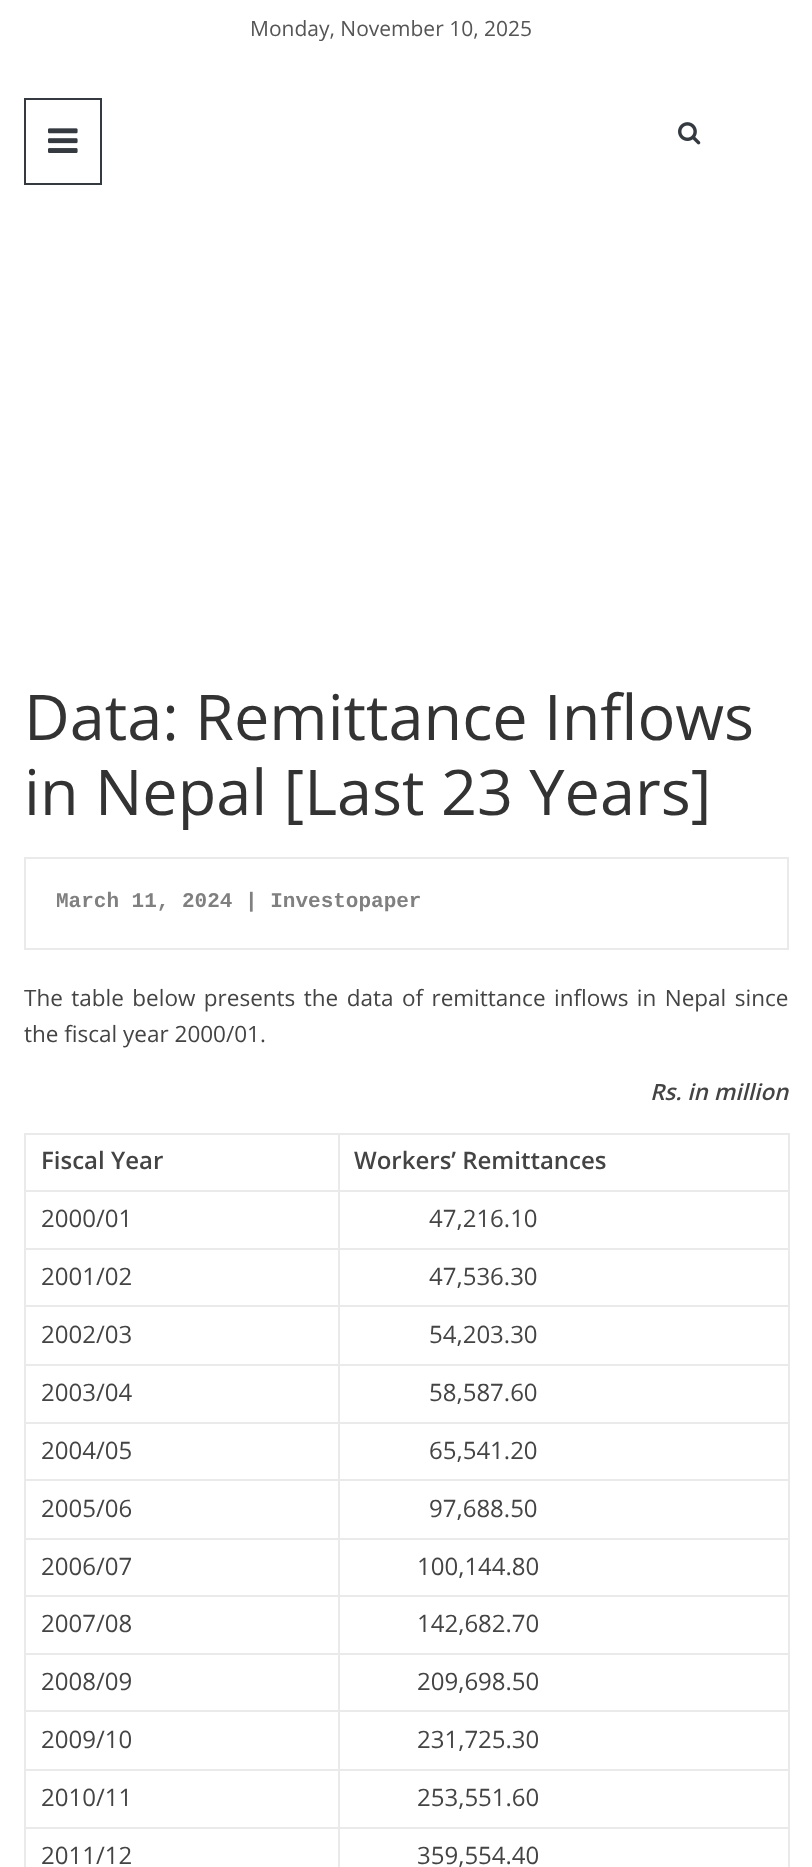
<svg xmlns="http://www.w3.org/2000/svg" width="812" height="1867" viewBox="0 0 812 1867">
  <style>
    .t1 { font: 21px Open Sans; fill: #555; }
    .t2 { font: 63px Open Sans; fill: #333; }
    .t3 { font: bold 21px Liberation Mono; fill: #808080; }
    .t4 { font: 22.5px Open Sans; fill: #444; }
    .t5 { font: italic 600 22.5px Open Sans; fill: #444; }
    .t6 { font: 600 24px Open Sans; fill: #444; }
    .t7 { font: 24px Open Sans; fill: #444; }
  </style>
  <rect width="100%" height="100%" fill="#fff"/>
  <text x="250" y="36" class="t1">Monday, November 10, 2025</text>
  <rect x="25" y="99" width="76" height="85" fill="none" stroke="#343a40" stroke-width="2"/>
  <image x="48" y="128" width="30" height="25" href="images/1.png"/>
  <image x="678" y="122" width="23" height="23" href="images/2.png"/>
  <text x="24" y="740" class="t2">Data: Remittance Inflows</text>
  <text x="24" y="815" class="t2">in Nepal [Last 23 Years]</text>
  <rect x="25" y="858" width="763" height="91" fill="none" stroke="#eaeaea" stroke-width="2"/>
  <text x="56" y="907" class="t3">March 11, 2024 | Investopaper</text>
  <text x="24" y="1006" word-spacing="2.6" class="t4">The table below presents the data of remittance inflows in Nepal since</text>
  <text x="24" y="1042" class="t4">the fiscal year 2000/01.</text>
  <text x="650" y="1100" class="t5">Rs. in million</text>
  <rect x="338" y="1133" width="451" height="2" fill="#eaeaea"/>
  <rect x="338" y="1190" width="451" height="2" fill="#eaeaea"/>
  <rect x="338" y="1248" width="451" height="2" fill="#eaeaea"/>
  <rect x="338" y="1305" width="451" height="2" fill="#eaeaea"/>
  <rect x="338" y="1364" width="451" height="2" fill="#eaeaea"/>
  <rect x="338" y="1422" width="451" height="2" fill="#eaeaea"/>
  <rect x="338" y="1479" width="451" height="2" fill="#eaeaea"/>
  <rect x="338" y="1538" width="451" height="2" fill="#eaeaea"/>
  <rect x="338" y="1595" width="451" height="2" fill="#eaeaea"/>
  <rect x="338" y="1653" width="451" height="2" fill="#eaeaea"/>
  <rect x="338" y="1710" width="451" height="2" fill="#eaeaea"/>
  <rect x="338" y="1769" width="451" height="2" fill="#eaeaea"/>
  <rect x="338" y="1827" width="451" height="2" fill="#eaeaea"/>
  <rect x="338" y="1827" width="2" height="40" fill="#eaeaea"/>
  <rect x="24" y="1827" width="315" height="2" fill="#eaeaea"/>
  <rect x="338" y="1769" width="2" height="60" fill="#eaeaea"/>
  <rect x="24" y="1769" width="315" height="2" fill="#eaeaea"/>
  <rect x="338" y="1710" width="2" height="60" fill="#eaeaea"/>
  <rect x="24" y="1710" width="315" height="2" fill="#eaeaea"/>
  <rect x="338" y="1653" width="2" height="59" fill="#eaeaea"/>
  <rect x="24" y="1653" width="315" height="2" fill="#eaeaea"/>
  <rect x="338" y="1595" width="2" height="60" fill="#eaeaea"/>
  <rect x="24" y="1595" width="315" height="2" fill="#eaeaea"/>
  <rect x="338" y="1538" width="2" height="58" fill="#eaeaea"/>
  <rect x="24" y="1538" width="315" height="2" fill="#eaeaea"/>
  <rect x="338" y="1479" width="2" height="60" fill="#eaeaea"/>
  <rect x="24" y="1479" width="315" height="2" fill="#eaeaea"/>
  <rect x="338" y="1422" width="2" height="59" fill="#eaeaea"/>
  <rect x="24" y="1422" width="315" height="2" fill="#eaeaea"/>
  <rect x="338" y="1364" width="2" height="60" fill="#eaeaea"/>
  <rect x="24" y="1364" width="315" height="2" fill="#eaeaea"/>
  <rect x="338" y="1305" width="2" height="60" fill="#eaeaea"/>
  <rect x="24" y="1305" width="315" height="2" fill="#eaeaea"/>
  <rect x="338" y="1248" width="2" height="59" fill="#eaeaea"/>
  <rect x="24" y="1248" width="315" height="2" fill="#eaeaea"/>
  <rect x="338" y="1190" width="2" height="60" fill="#eaeaea"/>
  <rect x="24" y="1190" width="315" height="2" fill="#eaeaea"/>
  <rect x="338" y="1133" width="2" height="58" fill="#eaeaea"/>
  <rect x="24" y="1133" width="315" height="2" fill="#eaeaea"/>
  <rect x="24" y="1827" width="2" height="40" fill="#eaeaea"/>
  <rect x="24" y="1769" width="2" height="60" fill="#eaeaea"/>
  <rect x="24" y="1710" width="2" height="60" fill="#eaeaea"/>
  <rect x="24" y="1653" width="2" height="59" fill="#eaeaea"/>
  <rect x="24" y="1595" width="2" height="60" fill="#eaeaea"/>
  <rect x="24" y="1538" width="2" height="58" fill="#eaeaea"/>
  <rect x="24" y="1479" width="2" height="60" fill="#eaeaea"/>
  <rect x="24" y="1422" width="2" height="59" fill="#eaeaea"/>
  <rect x="24" y="1364" width="2" height="60" fill="#eaeaea"/>
  <rect x="24" y="1305" width="2" height="60" fill="#eaeaea"/>
  <rect x="24" y="1248" width="2" height="59" fill="#eaeaea"/>
  <rect x="24" y="1190" width="2" height="60" fill="#eaeaea"/>
  <rect x="24" y="1133" width="2" height="58" fill="#eaeaea"/>
  <text x="41" y="1169" class="t6">Fiscal Year</text>
  <rect x="788" y="1827" width="2" height="40" fill="#eaeaea"/>
  <rect x="788" y="1769" width="2" height="60" fill="#eaeaea"/>
  <rect x="788" y="1710" width="2" height="60" fill="#eaeaea"/>
  <rect x="788" y="1653" width="2" height="59" fill="#eaeaea"/>
  <rect x="788" y="1595" width="2" height="60" fill="#eaeaea"/>
  <rect x="788" y="1538" width="2" height="58" fill="#eaeaea"/>
  <rect x="788" y="1479" width="2" height="60" fill="#eaeaea"/>
  <rect x="788" y="1422" width="2" height="59" fill="#eaeaea"/>
  <rect x="788" y="1364" width="2" height="60" fill="#eaeaea"/>
  <rect x="788" y="1305" width="2" height="60" fill="#eaeaea"/>
  <rect x="788" y="1248" width="2" height="59" fill="#eaeaea"/>
  <rect x="788" y="1190" width="2" height="60" fill="#eaeaea"/>
  <rect x="788" y="1133" width="2" height="58" fill="#eaeaea"/>
  <text x="354" y="1169" class="t6">Workers’ Remittances</text>
  <text x="41" y="1227" class="t7">2000/01</text>
  <text x="429" y="1227" class="t7">47,216.10</text>
  <text x="41" y="1285" class="t7">2001/02</text>
  <text x="429" y="1285" class="t7">47,536.30</text>
  <text x="41" y="1343" class="t7">2002/03</text>
  <text x="429" y="1343" class="t7">54,203.30</text>
  <text x="41" y="1401" class="t7">2003/04</text>
  <text x="429" y="1401" class="t7">58,587.60</text>
  <text x="41" y="1459" class="t7">2004/05</text>
  <text x="429" y="1459" class="t7">65,541.20</text>
  <text x="41" y="1517" class="t7">2005/06</text>
  <text x="429" y="1517" class="t7">97,688.50</text>
  <text x="41" y="1575" class="t7">2006/07</text>
  <text x="417" y="1575" class="t7">100,144.80</text>
  <text x="41" y="1632" class="t7">2007/08</text>
  <text x="417" y="1632" class="t7">142,682.70</text>
  <text x="41" y="1690" class="t7">2008/09</text>
  <text x="417" y="1690" class="t7">209,698.50</text>
  <text x="41" y="1748" class="t7">2009/10</text>
  <text x="417" y="1748" class="t7">231,725.30</text>
  <text x="41" y="1806" class="t7">2010/11</text>
  <text x="417" y="1806" class="t7">253,551.60</text>
  <text x="41" y="1864" class="t7">2011/12</text>
  <text x="417" y="1864" class="t7">359,554.40</text>
</svg>
